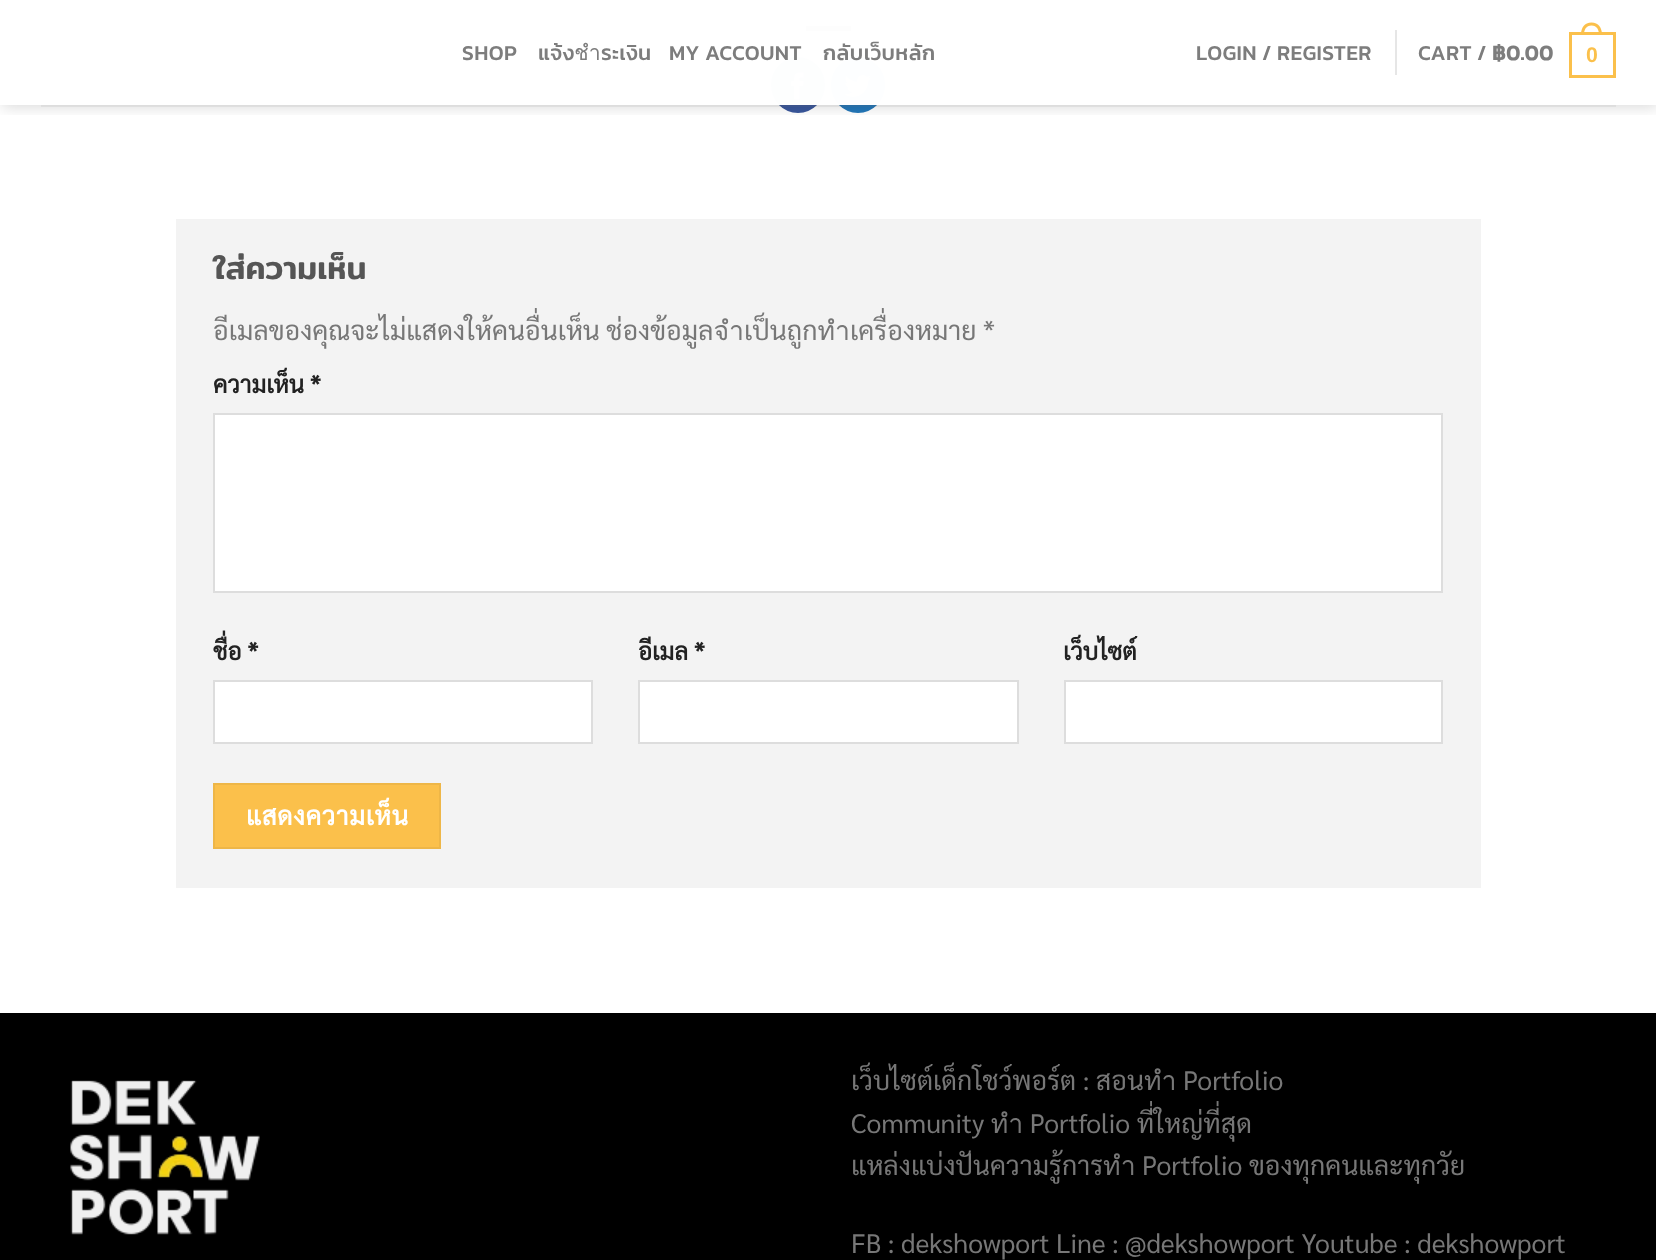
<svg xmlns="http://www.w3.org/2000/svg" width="1656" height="1260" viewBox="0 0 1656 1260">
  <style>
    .t1 { font: 500 21.25px Kanit; letter-spacing: 0.4px; fill: #7d7d7d; }
    .t2 { font: bold 21.25px Kanit; letter-spacing: 0.4px; fill: #7d7d7d; }
    .t3 { font: bold 21.25px Liberation Sans; letter-spacing: 0.4px; fill: #fbc04b; }
    .t4 { font: 500 32px Mitr; fill: #555; }
    .t5 { font: 26.65px Sarabun; fill: #777; }
    .t6 { font: bold 24px Sarabun; fill: #222; }
    .t7 { font: bold 25.75px Sarabun; letter-spacing: 0.75px; fill: #fff; }
  </style>
  <defs>
    <clipPath id="clip1"><rect x="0" y="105" width="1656" height="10"/></clipPath>
  </defs>
  <rect width="100%" height="100%" fill="#fff"/>
  <rect x="806" y="26" width="45" height="5" fill="#e6e6e6"/>
  <rect x="772" y="58" width="52" height="54" rx="26" fill="#3a589d" stroke="#3a589d" stroke-width="2"/>
  <image x="791" y="72" width="13" height="28" href="images/1.png"/>
  <rect x="832" y="58" width="52" height="54" rx="26" fill="#2478ba" stroke="#2478ba" stroke-width="2"/>
  <image x="844" y="75" width="27" height="22" href="images/2.png"/>
  <g clip-path="url(#clip1)">
    <rect x="2" y="2" width="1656" height="105" fill="#00000026" filter="blur(7.5px)"/>
  </g>
  <rect x="771" y="26" width="114" height="79" fill="#ffffffe6"/>
  <text x="462" y="60" class="t1">SHOP</text>
  <text x="538" y="60" class="t1">แจ้งชำระเงิน</text>
  <rect x="771" y="57" width="114" height="48" fill="#ffffffe6"/>
  <text x="669" y="60" class="t1">MY ACCOUNT</text>
  <text x="823" y="60" class="t1">กลับเว็บหลัก</text>
  <text x="1196" y="60" class="t1">LOGIN / REGISTER</text>
  <rect x="1395" y="30" width="2" height="45" fill="#e6e6e6"/>
  <text x="1418" y="60" class="t1">CART /</text>
  <text x="1492" y="60" class="t2">฿0.00</text>
  <rect x="1570.5" y="33.5" width="44" height="43" fill="none" stroke="#fbc04b" stroke-width="3"/>
  <path d="M1591.5 22.5C1598.5 22.5 1602 28 1602 34.5H1581C1581 28 1584.5 22.5 1591.5 22.5ZM1591.5 25.5C1597 25.5 1599 30 1599 34.5H1584C1584 30 1586 25.5 1591.5 25.5Z" fill="#fbc04b" fill-rule="evenodd"/>
  <text x="1586" y="62" class="t3">0</text>
  <rect x="41" y="105" width="1575" height="2" fill="#7777771a"/>
  <rect x="176" y="219" width="1305" height="669" fill="#f3f3f3"/>
  <text x="213" y="279" class="t4">ใส่ความเห็น</text>
  <text x="213" y="340" class="t5">อีเมลของคุณจะไม่แสดงให้คนอื่นเห็น ช่องข้อมูลจำเป็นถูกทำเครื่องหมาย *</text>
  <text x="213" y="393" class="t6">ความเห็น *</text>
  <rect x="214" y="414" width="1228" height="178" fill="#fff" stroke="#ddd" stroke-width="2"/>
  <text x="213" y="660" class="t6">ชื่อ *</text>
  <rect x="214" y="681" width="378" height="62" fill="#fff" stroke="#ddd" stroke-width="2"/>
  <text x="638" y="660" class="t6">อีเมล *</text>
  <rect x="639" y="681" width="379" height="62" fill="#fff" stroke="#ddd" stroke-width="2"/>
  <text x="1063" y="660" class="t6">เว็บไซต์</text>
  <rect x="1065" y="681" width="377" height="62" fill="#fff" stroke="#ddd" stroke-width="2"/>
  <rect x="214" y="784" width="226" height="64" fill="#fbc04b" stroke="#eeb647" stroke-width="2"/>
  <text x="246" y="825" class="t7">แสดงความเห็น</text>
  <rect x="0" y="1013" width="1656" height="247" fill="#000"/>
  <image x="70" y="1080" width="190" height="155" href="images/3.png"/>
  <text x="851" y="1090" class="t5">เว็บไซต์เด็กโชว์พอร์ต : สอนทำ Portfolio</text>
  <text x="851" y="1133" class="t5">Community ทำ Portfolio ที่ใหญ่ที่สุด</text>
  <text x="851" y="1175" class="t5">แหล่งแบ่งปันความรู้การทำ Portfolio ของทุกคนและทุกวัย</text>
  <text x="851" y="1253" class="t5">FB : dekshowport Line : @dekshowport Youtube : dekshowport</text>
</svg>
